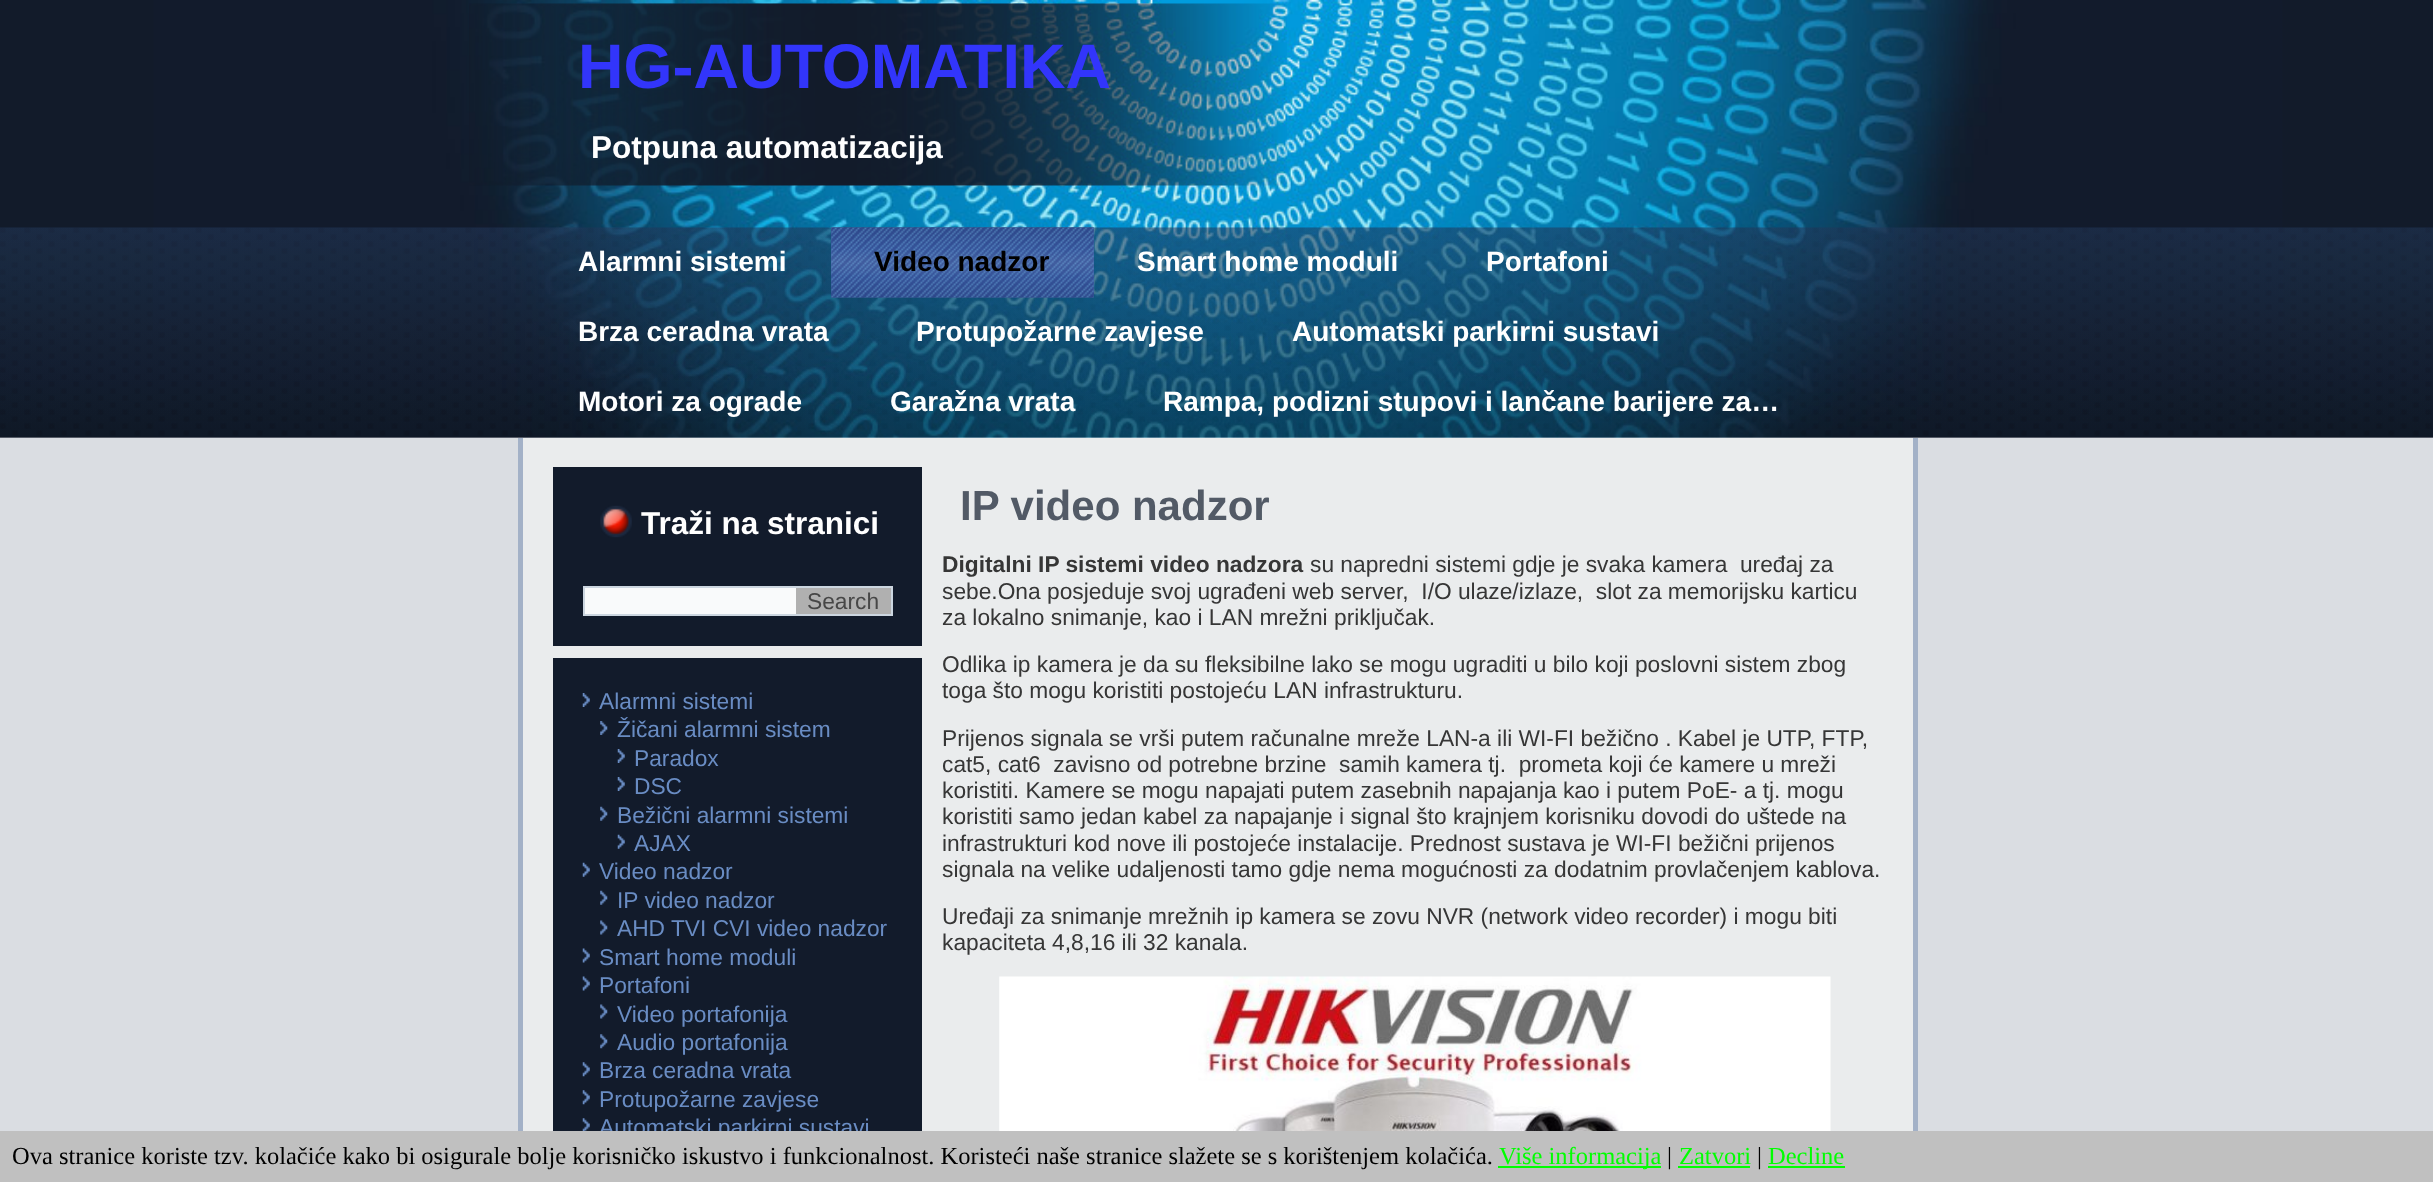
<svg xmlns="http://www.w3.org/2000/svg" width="2433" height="1182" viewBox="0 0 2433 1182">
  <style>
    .t1 { font: bold 63px Liberation Sans; fill: #3235fb; }
    .t2 { font: bold 31.5px Liberation Sans; fill: #fff; }
    .t3 { font: bold 28px Liberation Sans; fill: #fff; }
    .t4 { font: bold 28px Liberation Sans; fill: #000; }
    .t5 { font: 22.75px Liberation Sans; fill: #474747; }
    .t6 { font: 22.75px Liberation Sans; fill: #698cc3; }
    .t7 { font: bold 42px Liberation Sans; fill: #525a66; }
    .t8 { font: bold 22.75px Liberation Sans; fill: #363636; }
    .t9 { font: 22.75px Liberation Sans; fill: #363636; }
    .t10 { font: 24.5px Liberation Serif; fill: #000; }
    .t11 { font: 24.5px Liberation Serif; fill: #0f0; }
  </style>
  <rect width="100%" height="100%" fill="#dadde2"/>
  <image x="0" y="0" width="2433" height="438" href="images/1.png"/>
  <image x="469" y="3" width="818" height="183" href="images/2.png"/>
  <text x="578" y="88" class="t1">HG-AUTOMATIKA</text>
  <text x="591" y="158" class="t2">Potpuna automatizacija</text>
  <image x="0" y="227" width="2433" height="211" href="images/3.png"/>
  <text x="578" y="271" class="t3">Alarmni sistemi</text>
  <image x="831" y="227" width="263" height="71" href="images/4.png"/>
  <text x="874" y="271" class="t4">Video nadzor</text>
  <text x="1137" y="271" class="t3">Smart home moduli</text>
  <text x="1486" y="271" class="t3">Portafoni</text>
  <text x="578" y="341" class="t3">Brza ceradna vrata</text>
  <text x="916" y="341" class="t3">Protupožarne zavjese</text>
  <text x="1292" y="341" class="t3">Automatski parkirni sustavi</text>
  <text x="578" y="411" class="t3">Motori za ograde</text>
  <text x="890" y="411" class="t3">Garažna vrata</text>
  <text x="1163" y="411" class="t3">Rampa, podizni stupovi i lančane barijere za…</text>
  <rect x="523" y="438" width="1390" height="693" fill="#eaeced"/>
  <rect x="1913" y="438" width="5" height="693" fill="#a3b1c7"/>
  <rect x="518" y="438" width="5" height="693" fill="#a3b1c7"/>
  <rect x="553" y="467" width="369" height="179" fill="#121b2b"/>
  <image x="600" y="505" width="32" height="33" href="images/5.png"/>
  <text x="641" y="534" class="t2">Traži na stranici</text>
  <rect x="585" y="588" width="211" height="26" fill="#f9fafb"/>
  <rect x="584" y="587" width="308" height="28" fill="none" stroke="#ccd6e0" stroke-width="2"/>
  <rect x="796" y="588" width="95" height="26" fill="#b0b0b0"/>
  <text x="807" y="609" class="t5">Search</text>
  <rect x="553" y="658" width="369" height="473" fill="#121b2b"/>
  <image x="582" y="693" width="8" height="14" href="images/6.png"/>
  <text x="599" y="709" class="t6">Alarmni sistemi</text>
  <image x="600" y="721" width="8" height="14" href="images/7.png"/>
  <text x="617" y="737" class="t6">Žičani alarmni sistem</text>
  <image x="617" y="749" width="8" height="14" href="images/6.png"/>
  <text x="634" y="766" class="t6">Paradox</text>
  <image x="617" y="777" width="8" height="14" href="images/6.png"/>
  <text x="634" y="794" class="t6">DSC</text>
  <image x="600" y="806" width="8" height="15" href="images/8.png"/>
  <text x="617" y="823" class="t6">Bežični alarmni sistemi</text>
  <image x="617" y="834" width="8" height="15" href="images/9.png"/>
  <text x="634" y="851" class="t6">AJAX</text>
  <image x="582" y="862" width="8" height="15" href="images/9.png"/>
  <text x="599" y="879" class="t6">Video nadzor</text>
  <image x="600" y="890" width="8" height="15" href="images/8.png"/>
  <text x="617" y="908" class="t6">IP video nadzor</text>
  <image x="600" y="920" width="8" height="15" href="images/10.png"/>
  <text x="617" y="936" class="t6">AHD TVI CVI video nadzor</text>
  <image x="582" y="948" width="8" height="15" href="images/11.png"/>
  <text x="599" y="965" class="t6">Smart home moduli</text>
  <image x="582" y="976" width="8" height="15" href="images/11.png"/>
  <text x="599" y="993" class="t6">Portafoni</text>
  <image x="600" y="1004" width="8" height="15" href="images/10.png"/>
  <text x="617" y="1022" class="t6">Video portafonija</text>
  <image x="600" y="1034" width="8" height="15" href="images/12.png"/>
  <text x="617" y="1050" class="t6">Audio portafonija</text>
  <image x="582" y="1062" width="8" height="15" href="images/13.png"/>
  <text x="599" y="1078" class="t6">Brza ceradna vrata</text>
  <image x="582" y="1090" width="8" height="15" href="images/13.png"/>
  <text x="599" y="1107" class="t6">Protupožarne zavjese</text>
  <image x="582" y="1118" width="8" height="13" href="images/14.png"/>
  <text x="599" y="1135" class="t6">Automatski parkirni sustavi</text>
  <text x="960" y="520" class="t7">IP video nadzor</text>
  <text x="942" y="572" class="t8">Digitalni IP sistemi video nadzora</text>
  <text x="1310" y="572" class="t9" xml:space="preserve">su napredni sistemi gdje je svaka kamera  uređaj za</text>
  <text x="942" y="599" class="t9" xml:space="preserve">sebe.Ona posjeduje svoj ugrađeni web server,  I/O ulaze/izlaze,  slot za memorijsku karticu</text>
  <text x="942" y="625" class="t9">za lokalno snimanje, kao i LAN mrežni priključak.</text>
  <text x="942" y="672" class="t9">Odlika ip kamera je da su fleksibilne lako se mogu ugraditi u bilo koji poslovni sistem zbog</text>
  <text x="942" y="698" class="t9">toga što mogu koristiti postojeću LAN infrastrukturu.</text>
  <text x="942" y="746" class="t9">Prijenos signala se vrši putem računalne mreže LAN-a ili WI-FI bežično . Kabel je UTP, FTP,</text>
  <text x="942" y="772" class="t9" xml:space="preserve">cat5, cat6  zavisno od potrebne brzine  samih kamera tj.  prometa koji će kamere u mreži</text>
  <text x="942" y="798" class="t9">koristiti. Kamere se mogu napajati putem zasebnih napajanja kao i putem PoE- a tj. mogu</text>
  <text x="942" y="824" class="t9">koristiti samo jedan kabel za napajanje i signal što krajnjem korisniku dovodi do uštede na</text>
  <text x="942" y="851" class="t9">infrastrukturi kod nove ili postojeće instalacije. Prednost sustava je WI-FI bežični prijenos</text>
  <text x="942" y="877" class="t9">signala na velike udaljenosti tamo gdje nema mogućnosti za dodatnim provlačenjem kablova.</text>
  <text x="942" y="924" class="t9">Uređaji za snimanje mrežnih ip kamera se zovu NVR (network video recorder) i mogu biti</text>
  <text x="942" y="950" class="t9">kapaciteta 4,8,16 ili 32 kanala.</text>
  <image x="999" y="976" width="832" height="155" href="images/15.png"/>
  <rect x="0" y="1131" width="2433" height="51" fill="#c0c0c0"/>
  <text x="12" y="1164" class="t10">Ova stranice koriste tzv. kolačiće kako bi osigurale bolje korisničko iskustvo i funkcionalnost. Koristeći naše stranice slažete se s korištenjem kolačića.</text>
  <rect x="1498" y="1166" width="163" height="2" fill="#0f0"/>
  <text x="1499" y="1164" class="t11">Više informacija</text>
  <text x="1667" y="1164" class="t10">|</text>
  <text x="1679" y="1164" class="t11">Zatvori</text>
  <rect x="1678" y="1166" width="72" height="2" fill="#0f0"/>
  <text x="1757" y="1164" class="t10">|</text>
  <text x="1768" y="1164" class="t11">Decline</text>
  <rect x="1768" y="1166" width="77" height="2" fill="#0f0"/>
</svg>
